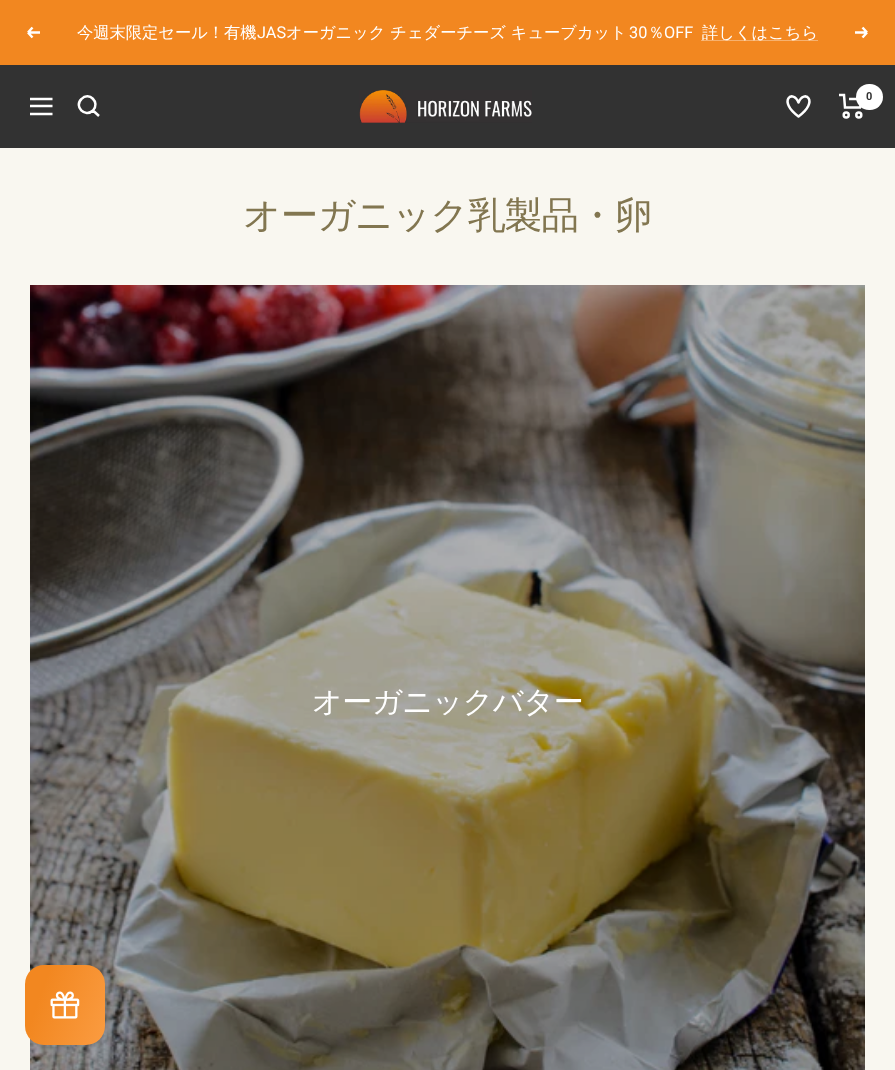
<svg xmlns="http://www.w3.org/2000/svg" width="895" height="1070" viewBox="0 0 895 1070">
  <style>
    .t1 { font: 500 16.25px WenQuanYi Zen Hei; fill: #fff; }
    .t2 { font: 16.25px Roboto; fill: #fff; }
    .t3 { font: bold 11px Roboto; fill: #323232; }
    .t4 { font: 500 37.5px WenQuanYi Zen Hei; letter-spacing: -0.75px; fill: #827650; }
    .t5 { font: 500 30px WenQuanYi Zen Hei; letter-spacing: -0.4px; fill: #fff; }
  </style>
  <defs>
    <linearGradient id="g1" gradientUnits="userSpaceOnUse" x1="17" y1="988" x2="152" y2="1036"><stop offset="0.17" stop-color="#f28720"/><stop offset="1" stop-color="#ffa753"/></linearGradient>
  </defs>
  <rect width="100%" height="100%" fill="#f9f7f0"/>
  <rect x="0" y="0" width="895" height="65" fill="#f28720"/>
  <path d="M40 32.5H28M28 32.5L32.5 37.5M28 32.5L32.5 27.5" fill="none" stroke="#fff" stroke-width="2.5"/>
  <text x="77" y="38" class="t1">今週末限定セール！有機</text>
  <text x="257" y="38" class="t2">JAS</text>
  <text x="286" y="38" class="t1">オーガニック チェダーチーズ キューブカット</text>
  <text x="629" y="38" class="t2">30</text>
  <text x="648" y="38" class="t1">％</text>
  <text x="664" y="38" class="t2">OFF</text>
  <rect x="701" y="40" width="117" height="1" fill="#f7b16e"/>
  <text x="702" y="38" class="t1">詳しくはこちら</text>
  <path d="M855 32.5H867M867 32.5L862.5 37.5M867 32.5L862.5 27.5" fill="none" stroke="#fff" stroke-width="2.5"/>
  <rect x="0" y="65" width="895" height="83" fill="#323232"/>
  <path d="M30 99H52.5M30 114H52.5ZM30 106H52.5Z" fill="none" stroke="#fff" stroke-width="2.5"/>
  <path d="M93 110.5C100.5 102.5 89 91 81.5 99C73.5 106.5 85 118 93 110.5ZM93 110.5L99 116" fill="none" stroke="#fff" stroke-width="2.5"/>
  <image x="359" y="90" width="173" height="33" href="images/1.png"/>
  <path d="M798.5 116.5C777 101 793 88.5 798.5 102.5M798.5 116.5C820 101 804 88.5 798.5 102.5" fill="none" stroke="#fff" stroke-width="2.5" stroke-linecap="round" stroke-linejoin="round"/>
  <path d="M839 95H844L845 107.5H860L862.5 99H849" fill="none" stroke="#fff" stroke-width="2.5"/>
  <circle cx="846.2" cy="115" r="2.5" fill="none" stroke="#fff" stroke-width="2.5"/>
  <circle cx="858.8" cy="115" r="2.5" fill="none" stroke="#fff" stroke-width="2.5"/>
  <rect x="856" y="84" width="27" height="26" rx="13" fill="#fff"/>
  <text x="866" y="100" class="t3">0</text>
  <text x="243" y="228" class="t4">オーガニック乳製品・卵</text>
  <image x="30" y="285" width="835" height="785" href="images/2.png"/>
  <text x="312" y="712" class="t5">オーガニックバター</text>
  <rect x="25" y="965" width="80" height="80" rx="19" fill="url(#g1)"/>
  <image x="50" y="991" width="30" height="28" href="images/3.png"/>
</svg>
